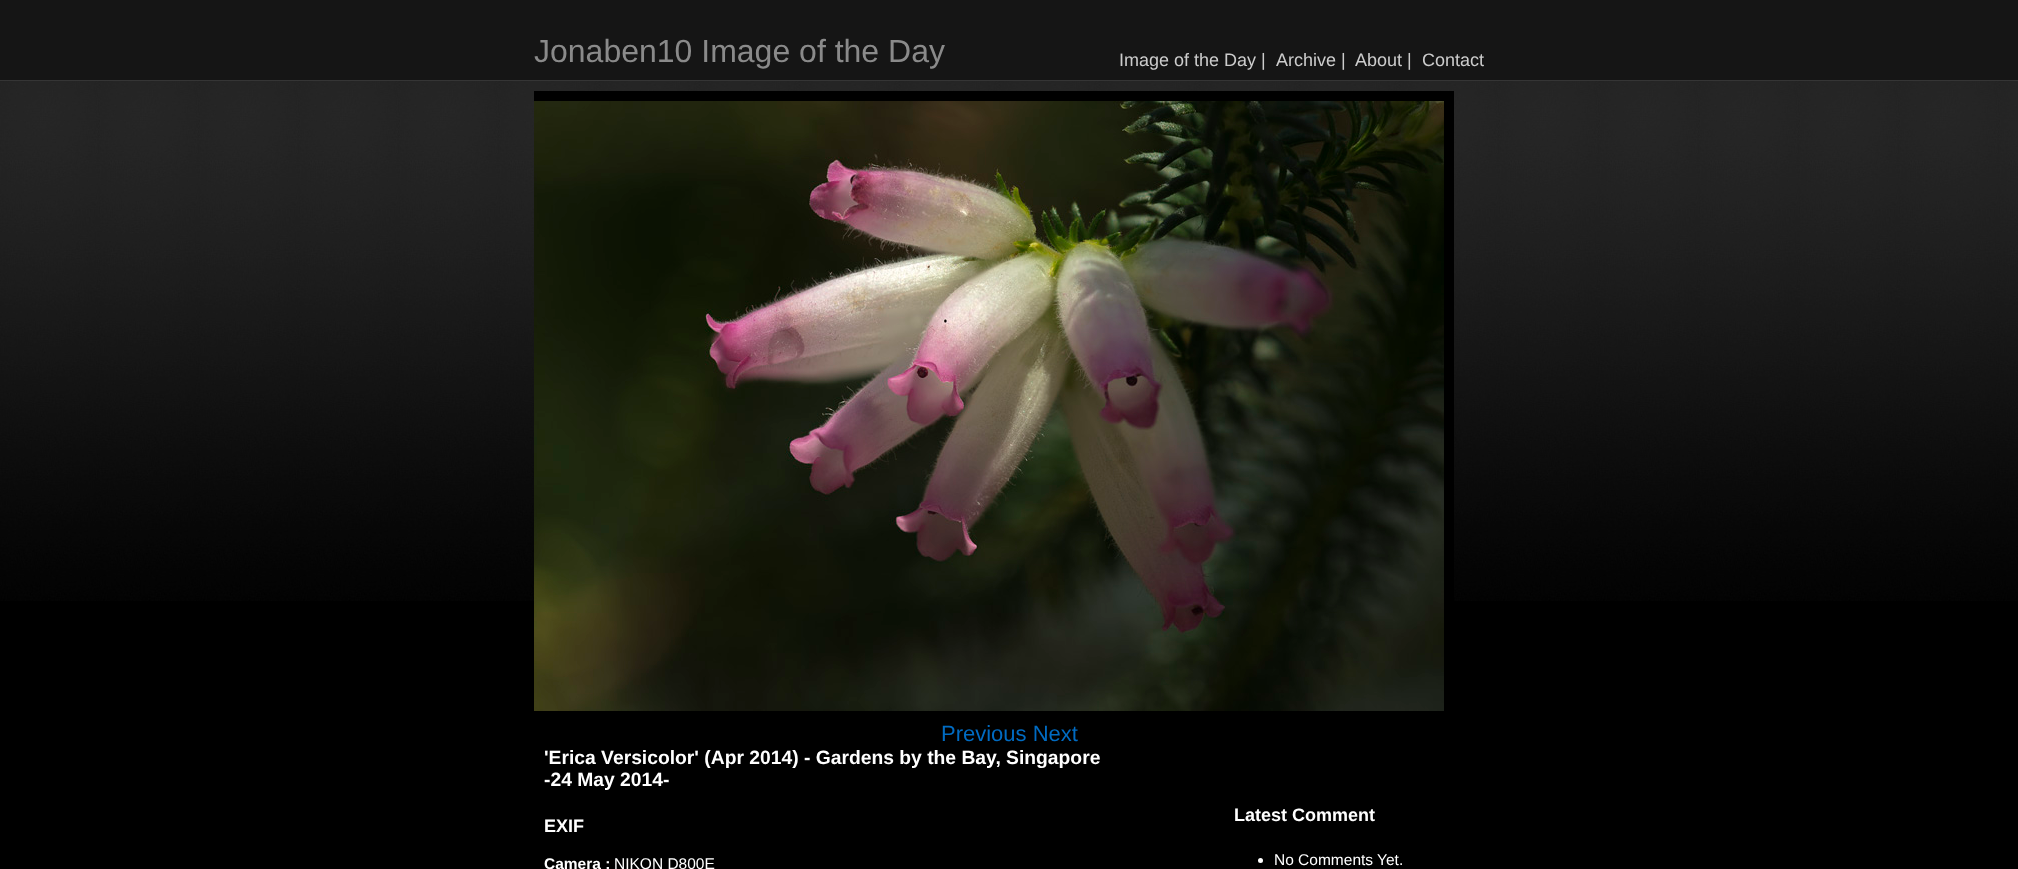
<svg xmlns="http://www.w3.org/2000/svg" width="2018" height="869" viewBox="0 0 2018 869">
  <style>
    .t1 { font: 32px Liberation Sans; fill: #8a8a8a; }
    .t2 { font: 18px Liberation Sans; fill: #ccc; }
    .t3 { font: 22px Liberation Sans; fill: #006bc2; }
    .t4 { font: bold 19.3px Liberation Sans; fill: #fff; }
    .t5 { font: bold 18px Liberation Sans; fill: #fff; }
    .t6 { font: bold 15.5px Liberation Sans; fill: #fff; }
    .t7 { font: 15.5px Liberation Sans; fill: #fff; }
  </style>
  <defs>
    <clipPath id="clip1"><rect x="534" y="91" width="950" height="630"/></clipPath>
  </defs>
  <rect width="100%" height="100%" fill="#151515"/>
  <text x="534" y="62" class="t1">Jonaben10 Image of the Day</text>
  <text x="1119" y="66" class="t2">Image of the Day |</text>
  <text x="1276" y="66" class="t2">Archive |</text>
  <text x="1355" y="66" class="t2">About |</text>
  <text x="1422" y="66" class="t2">Contact</text>
  <rect x="0" y="601" width="2018" height="268" fill="#000"/>
  <image x="0" y="81" width="2018" height="520" href="images/1.png"/>
  <rect x="0" y="80" width="2018" height="1" fill="#353535"/>
  <g clip-path="url(#clip1)">
    <rect x="524" y="96" width="925" height="620" fill="none" stroke="#000" stroke-width="10"/>
  </g>
  <image x="534" y="101" width="910" height="610" href="images/2.png"/>
  <text x="941" y="741" class="t3">Previous Next</text>
  <text x="544" y="764" class="t4">'Erica Versicolor' (Apr 2014) - Gardens by the Bay, Singapore</text>
  <text x="544" y="786" class="t4">-24 May 2014-</text>
  <text x="544" y="832" class="t5">EXIF</text>
  <text x="544" y="869" class="t6">Camera :</text>
  <text x="614" y="869" class="t7">NIKON D800E</text>
  <text x="1234" y="821" class="t5">Latest Comment</text>
  <circle cx="1260.5" cy="860.5" r="2.5" fill="#fff"/>
  <text x="1274" y="865" class="t7">No Comments Yet.</text>
</svg>
